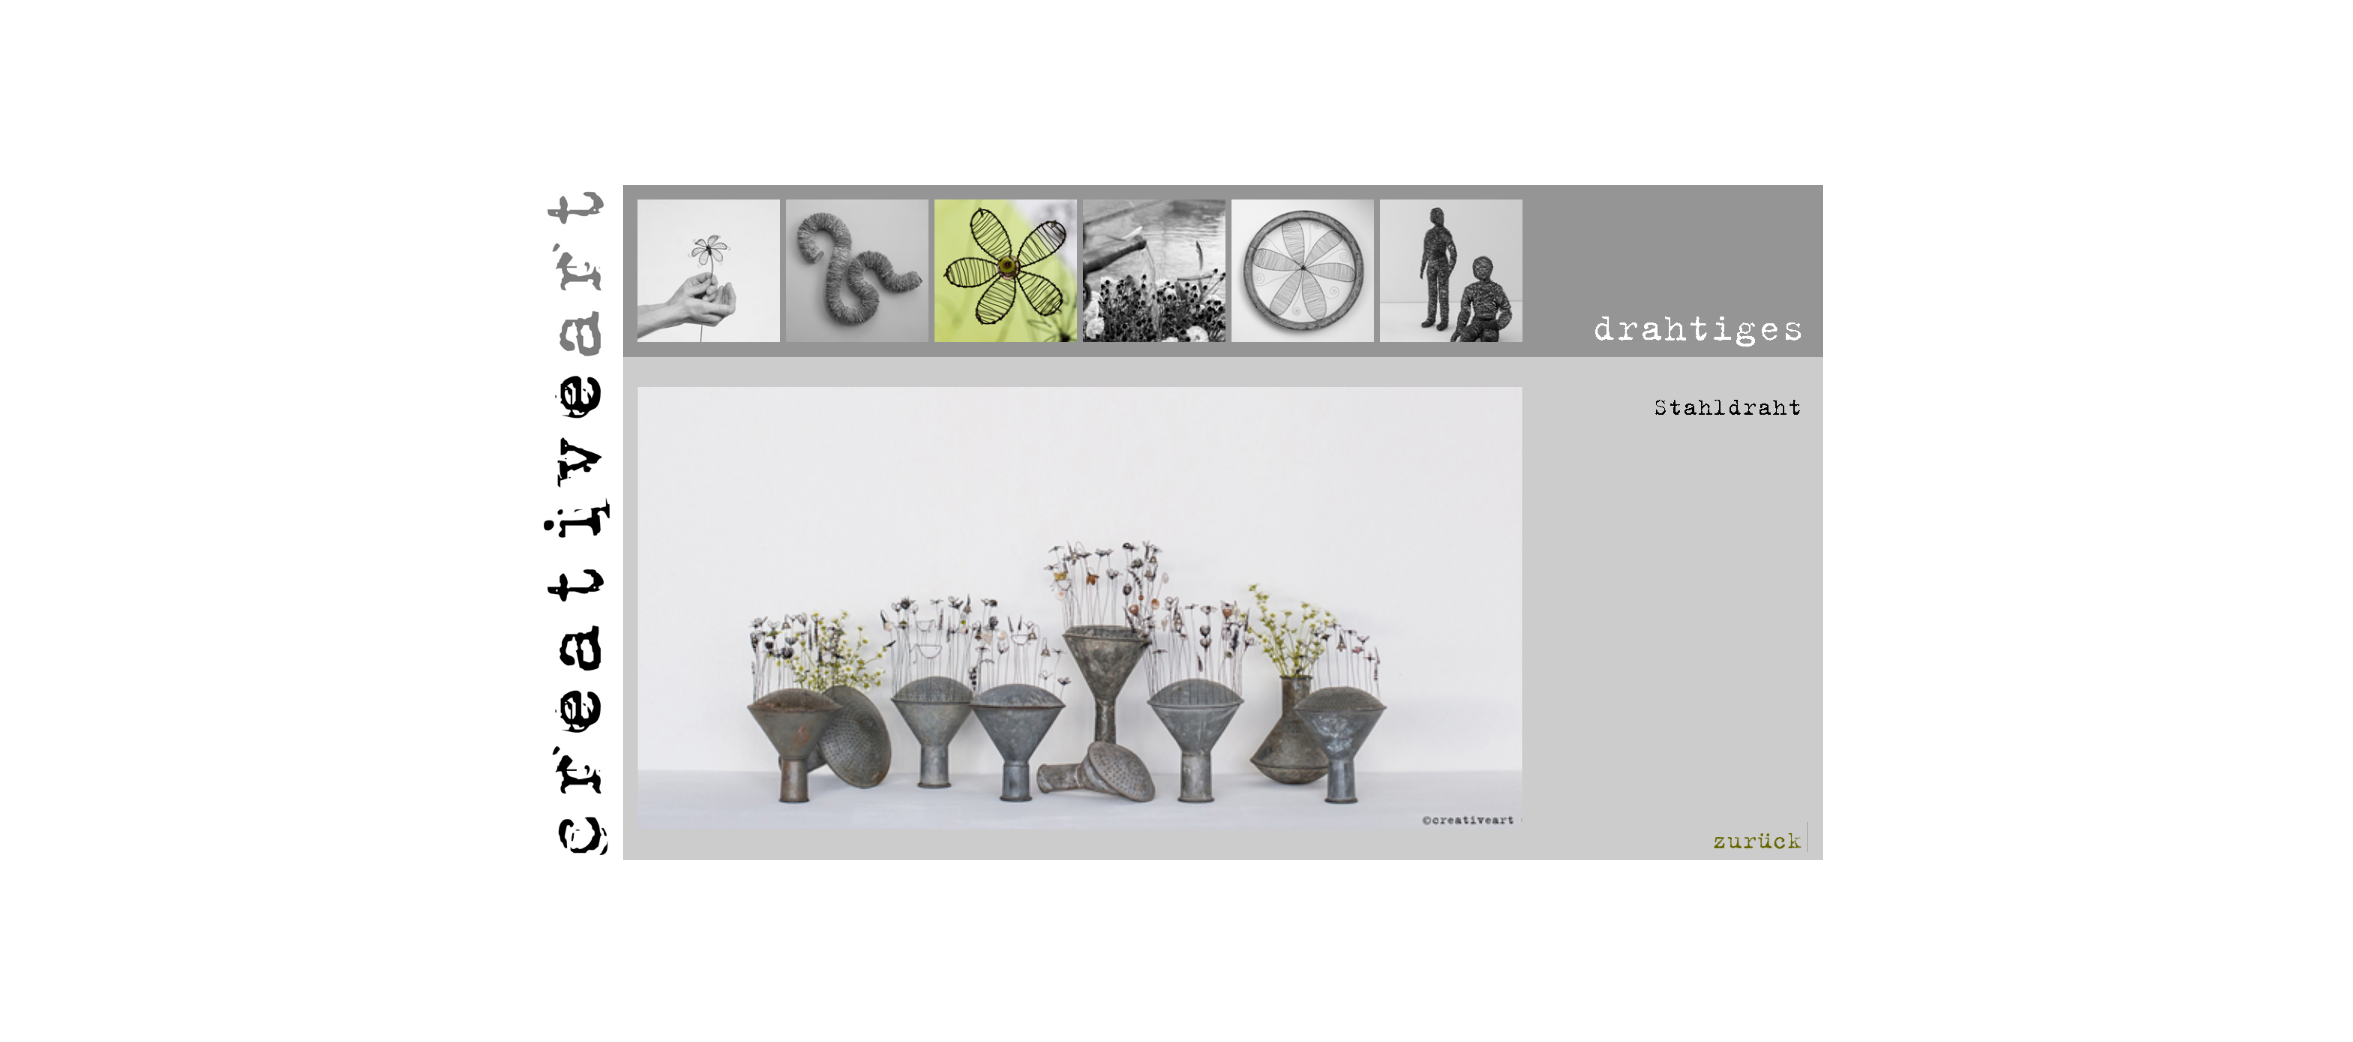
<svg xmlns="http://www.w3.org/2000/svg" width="2353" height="1042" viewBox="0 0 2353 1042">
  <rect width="100%" height="100%" fill="#fff"/>
  <image x="543" y="191" width="67" height="665" href="images/1.png"/>
  <rect x="623" y="185" width="1200" height="172" fill="#959595"/>
  <image x="637" y="199" width="143" height="143" href="images/2.png"/>
  <image x="786" y="199" width="143" height="143" href="images/3.png"/>
  <image x="934" y="199" width="143" height="143" href="images/4.png"/>
  <image x="1083" y="199" width="143" height="143" href="images/5.png"/>
  <image x="1231" y="199" width="143" height="143" href="images/6.png"/>
  <image x="1380" y="199" width="143" height="143" href="images/7.png"/>
  <image x="1595" y="316" width="206" height="32" href="images/8.png"/>
  <rect x="623" y="357" width="1200" height="503" fill="#ccc"/>
  <image x="638" y="491" width="884" height="334" href="images/10.png"/>
  <image x="637" y="387" width="886" height="443" href="images/9.png"/>
  <image x="1655" y="399" width="145" height="16" href="images/11.png"/>
  <rect x="1807" y="822" width="1" height="30" fill="#959595"/>
  <image x="1538" y="822" width="270" height="30" href="images/12.png"/>
</svg>
